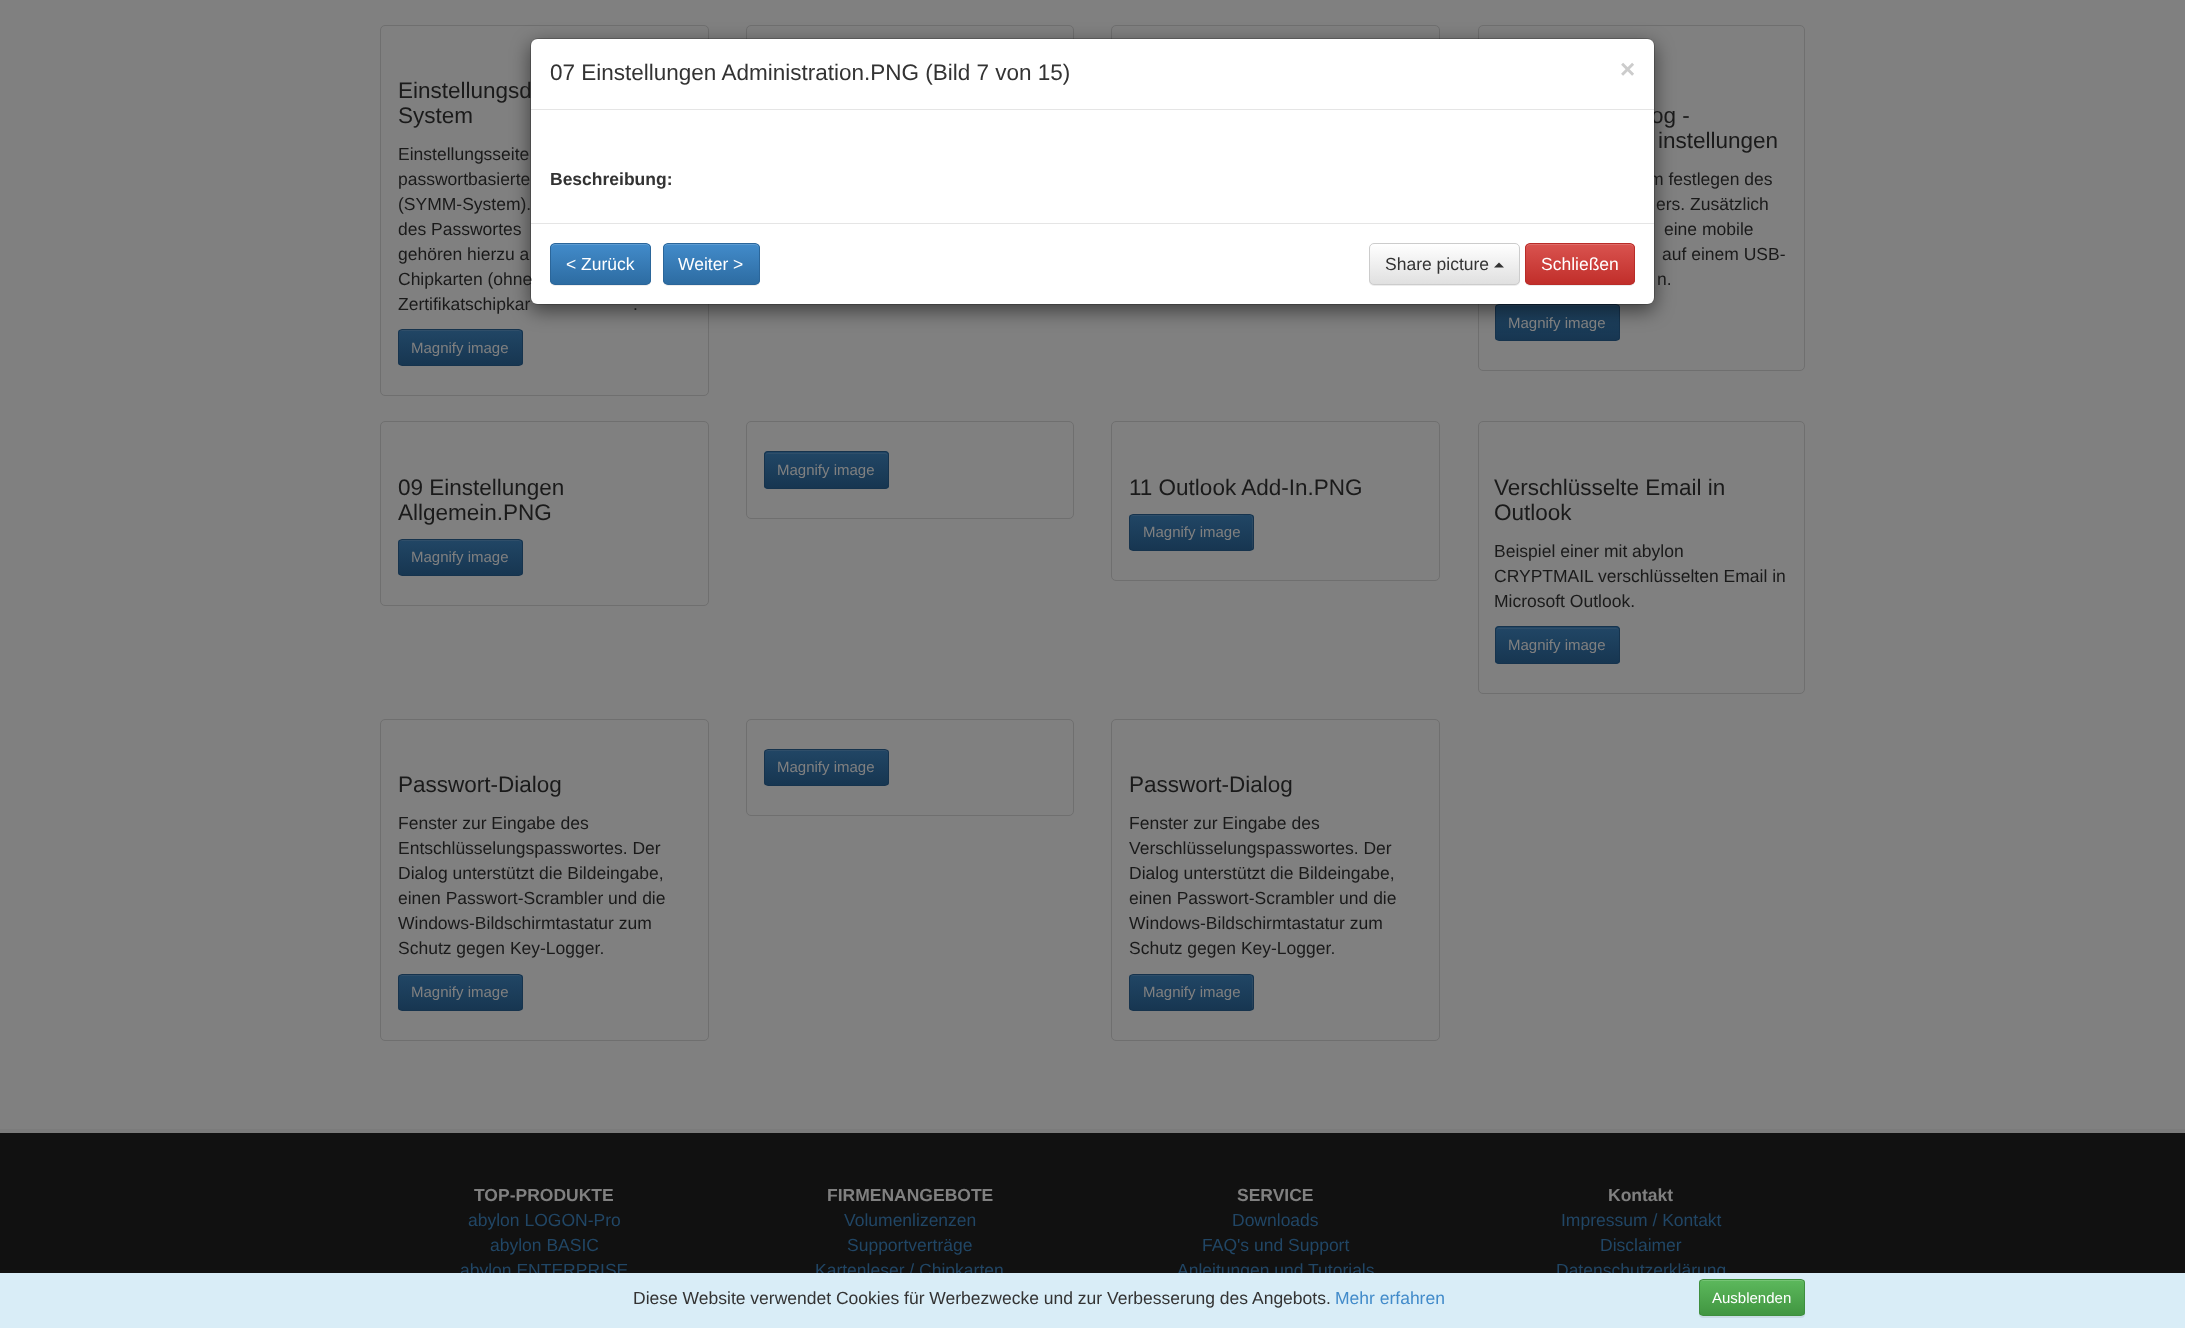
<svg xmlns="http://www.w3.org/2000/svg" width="2185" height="1328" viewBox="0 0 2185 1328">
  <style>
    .t1 { font: 22.5px Liberation Sans; fill: #1a1a1a; }
    .t2 { font: 17.5px Liberation Sans; fill: #1a1a1a; }
    .t3 { font: 22.5px Liberation Sans; fill: #333; }
    .t4 { font: bold 26px Liberation Sans; fill: #ccc; }
    .t5 { font: bold 17.5px Liberation Sans; fill: #333; }
    .t6 { font: 17.5px Liberation Sans; fill: #fff; }
    .t7 { font: 17.5px Liberation Sans; fill: #333; }
    .t8 { font: 15px Liberation Sans; fill: #808080; }
    .t9 { font: bold 17.5px Liberation Sans; fill: #808080; }
    .t10 { font: 17.5px Liberation Sans; fill: #214665; }
    .t11 { font: 17.5px Liberation Sans; fill: #428bca; }
    .t12 { font: 15px Liberation Sans; fill: #fff; }
  </style>
  <defs>
    <clipPath id="clip1"><rect x="398" y="329" width="125" height="37" rx="4"/></clipPath>
    <linearGradient id="g1" gradientUnits="userSpaceOnUse" x1="460" y1="330" x2="460" y2="365"><stop offset="0" stop-color="#214665"/><stop offset="1" stop-color="#173651"/></linearGradient>
    <clipPath id="clip2"><rect x="1495" y="304" width="125" height="37" rx="4"/></clipPath>
    <linearGradient id="g2" gradientUnits="userSpaceOnUse" x1="1558" y1="305" x2="1558" y2="340"><stop offset="0" stop-color="#214665"/><stop offset="1" stop-color="#173651"/></linearGradient>
    <clipPath id="clip3"><rect x="550" y="243" width="101" height="42" rx="5"/></clipPath>
    <linearGradient id="g3" gradientUnits="userSpaceOnUse" x1="601" y1="244" x2="601" y2="284"><stop offset="0" stop-color="#428bca"/><stop offset="1" stop-color="#2d6ca2"/></linearGradient>
    <clipPath id="clip4"><rect x="663" y="243" width="97" height="42" rx="5"/></clipPath>
    <linearGradient id="g4" gradientUnits="userSpaceOnUse" x1="711" y1="244" x2="711" y2="284"><stop offset="0" stop-color="#428bca"/><stop offset="1" stop-color="#2d6ca2"/></linearGradient>
    <clipPath id="clip5"><rect x="1369" y="243" width="151" height="42" rx="5"/></clipPath>
    <linearGradient id="g5" gradientUnits="userSpaceOnUse" x1="1444" y1="244" x2="1444" y2="284"><stop offset="0" stop-color="#fff"/><stop offset="1" stop-color="#e0e0e0"/></linearGradient>
    <clipPath id="clip6"><rect x="1525" y="243" width="110" height="42" rx="5"/></clipPath>
    <linearGradient id="g6" gradientUnits="userSpaceOnUse" x1="1580" y1="244" x2="1580" y2="284"><stop offset="0" stop-color="#d9534f"/><stop offset="1" stop-color="#c12e2a"/></linearGradient>
    <clipPath id="clip7"><rect x="764" y="451" width="125" height="38" rx="4"/></clipPath>
    <linearGradient id="g7" gradientUnits="userSpaceOnUse" x1="826" y1="453" x2="826" y2="488"><stop offset="0" stop-color="#214665"/><stop offset="1" stop-color="#173651"/></linearGradient>
    <clipPath id="clip8"><rect x="398" y="539" width="125" height="37" rx="4"/></clipPath>
    <linearGradient id="g8" gradientUnits="userSpaceOnUse" x1="460" y1="540" x2="460" y2="575"><stop offset="0" stop-color="#214665"/><stop offset="1" stop-color="#173651"/></linearGradient>
    <clipPath id="clip9"><rect x="1129" y="514" width="125" height="37" rx="4"/></clipPath>
    <linearGradient id="g9" gradientUnits="userSpaceOnUse" x1="1191" y1="515" x2="1191" y2="550"><stop offset="0" stop-color="#214665"/><stop offset="1" stop-color="#173651"/></linearGradient>
    <clipPath id="clip10"><rect x="1495" y="626" width="125" height="38" rx="4"/></clipPath>
    <linearGradient id="g10" gradientUnits="userSpaceOnUse" x1="1558" y1="628" x2="1558" y2="663"><stop offset="0" stop-color="#214665"/><stop offset="1" stop-color="#173651"/></linearGradient>
    <clipPath id="clip11"><rect x="764" y="749" width="125" height="37" rx="4"/></clipPath>
    <linearGradient id="g11" gradientUnits="userSpaceOnUse" x1="826" y1="750" x2="826" y2="785"><stop offset="0" stop-color="#214665"/><stop offset="1" stop-color="#173651"/></linearGradient>
    <clipPath id="clip12"><rect x="398" y="974" width="125" height="37" rx="4"/></clipPath>
    <linearGradient id="g12" gradientUnits="userSpaceOnUse" x1="460" y1="975" x2="460" y2="1010"><stop offset="0" stop-color="#214665"/><stop offset="1" stop-color="#173651"/></linearGradient>
    <clipPath id="clip13"><rect x="1129" y="974" width="125" height="37" rx="4"/></clipPath>
    <linearGradient id="g13" gradientUnits="userSpaceOnUse" x1="1191" y1="975" x2="1191" y2="1010"><stop offset="0" stop-color="#214665"/><stop offset="1" stop-color="#173651"/></linearGradient>
    <clipPath id="clip14"><rect x="1699" y="1279" width="106" height="37" rx="4"/></clipPath>
    <linearGradient id="g14" gradientUnits="userSpaceOnUse" x1="1752" y1="1280" x2="1752" y2="1315"><stop offset="0" stop-color="#5cb85c"/><stop offset="1" stop-color="#419641"/></linearGradient>
  </defs>
  <rect width="100%" height="100%" fill="#808080"/>
  <rect x="380.5" y="25.5" width="328" height="370" rx="4.5" fill="none" stroke="#6f6f6f"/>
  <g clip-path="url(#clip1)">
    <rect x="398" y="330" width="125" height="35" fill="url(#g1)"/>
  </g>
  <path d="M401 331H519C520 331 521 332 521 334V332C521 331 520 330 518 330H402C400 330 399 331 399 332V334C399 332 400 331 401 331Z" fill="#2f4e69"/>
  <rect x="398.5" y="329.5" width="124" height="36" rx="3.5" fill="none" stroke="#16334d"/>
  <rect x="746.5" y="25.5" width="327" height="270" rx="4.5" fill="none" stroke="#6f6f6f"/>
  <rect x="1111.5" y="25.5" width="328" height="183" rx="4.5" fill="none" stroke="#6f6f6f"/>
  <rect x="1478.5" y="25.5" width="326" height="345" rx="4.5" fill="none" stroke="#6f6f6f"/>
  <g clip-path="url(#clip2)">
    <rect x="1495" y="305" width="125" height="35" fill="url(#g2)"/>
  </g>
  <path d="M1499 306H1616C1618 306 1619 307 1619 309V308C1619 306 1618 305 1616 305H1498C1497 305 1496 306 1496 308V309C1496 307 1497 306 1499 306Z" fill="#2f4e69"/>
  <rect x="1495.5" y="304.5" width="124" height="36" rx="3.5" fill="none" stroke="#16334d"/>
  <rect x="530" y="44" width="1125" height="267" rx="8" fill="#00000080" filter="blur(9.5px)"/>
  <text x="1651" y="123" class="t1">og -</text>
  <text x="1649" y="185" class="t2">m festlegen des</text>
  <rect x="531" y="39" width="1123" height="265" rx="6" fill="#fff"/>
  <text x="398" y="285" class="t2">Chipkarten (ohne</text>
  <rect x="530.5" y="38.5" width="1124" height="266" rx="7.5" fill="none" stroke="#00000033"/>
  <rect x="531" y="109" width="1123" height="1" fill="#e5e5e5"/>
  <text x="550" y="80" class="t3">07 Einstellungen Administration.PNG (Bild 7 von 15)</text>
  <text x="1620" y="78" class="t4">×</text>
  <text x="550" y="185" class="t5">Beschreibung:</text>
  <rect x="531" y="223" width="1123" height="1" fill="#e5e5e5"/>
  <rect x="550" y="244" width="101" height="42" rx="5" fill="#00000012" filter="blur(0.5px)"/>
  <g clip-path="url(#clip3)">
    <rect x="550" y="244" width="101" height="40" fill="url(#g3)"/>
  </g>
  <path d="M555 245H646C648 245 650 247 650 249C650 240 635 244 631 244H570C566 244 551 240 551 249C551 247 553 245 555 245Z" fill="#5e9cd2"/>
  <rect x="550.5" y="243.5" width="100" height="41" rx="4.5" fill="none" stroke="#2b669a"/>
  <text x="566" y="270" class="t6">&lt; Zurück</text>
  <rect x="663" y="244" width="97" height="42" rx="5" fill="#00000012" filter="blur(0.5px)"/>
  <g clip-path="url(#clip4)">
    <rect x="663" y="244" width="97" height="40" fill="url(#g4)"/>
  </g>
  <path d="M668 245H755C757 245 759 247 759 249C759 240 745 244 740 244H682C678 244 664 240 664 249C664 247 665 245 668 245Z" fill="#5e9cd2"/>
  <rect x="663.5" y="243.5" width="96" height="41" rx="4.5" fill="none" stroke="#2b669a"/>
  <text x="678" y="270" class="t6">Weiter &gt;</text>
  <rect x="1369" y="244" width="151" height="42" rx="5" fill="#00000012" filter="blur(0.5px)"/>
  <g clip-path="url(#clip5)">
    <rect x="1369" y="244" width="151" height="40" fill="url(#g5)"/>
  </g>
  <rect x="1369.5" y="243.5" width="150" height="41" rx="4.5" fill="none" stroke="#ccc"/>
  <text x="1385" y="270" class="t7">Share picture</text>
  <path d="M1504 267.5H1494L1499 262.5Z" fill="#333"/>
  <rect x="1525" y="244" width="110" height="42" rx="5" fill="#00000012" filter="blur(0.5px)"/>
  <g clip-path="url(#clip6)">
    <rect x="1525" y="244" width="110" height="40" fill="url(#g6)"/>
  </g>
  <path d="M1530 245H1630C1632 245 1634 247 1634 249C1634 240 1617 244 1613 244H1547C1543 244 1526 240 1526 249C1526 247 1528 245 1530 245Z" fill="#df6d69"/>
  <rect x="1525.5" y="243.5" width="109" height="41" rx="4.5" fill="none" stroke="#b92c28"/>
  <text x="1541" y="270" class="t6">Schließen</text>
  <text x="398" y="98" class="t1">Einstellungsd</text>
  <text x="398" y="123" class="t1">System</text>
  <text x="398" y="160" class="t2">Einstellungsseite</text>
  <text x="398" y="185" class="t2">passwortbasierte</text>
  <text x="398" y="210" class="t2">(SYMM-System).</text>
  <text x="398" y="235" class="t2">des Passwortes</text>
  <text x="398" y="260" class="t2">gehören hierzu a</text>
  <text x="398" y="310" class="t2">Zertifikatschipkar</text>
  <text x="633" y="310" class="t2">.</text>
  <text x="411" y="353" class="t8">Magnify image</text>
  <text x="1658" y="148" class="t1">instellungen</text>
  <text x="1656" y="210" class="t2">ers. Zusätzlich</text>
  <text x="1664" y="235" class="t2">eine mobile</text>
  <text x="1662" y="260" class="t2">auf einem USB-</text>
  <text x="1657" y="285" class="t2">n.</text>
  <text x="1508" y="328" class="t8">Magnify image</text>
  <rect x="746.5" y="421.5" width="327" height="97" rx="4.5" fill="none" stroke="#6f6f6f"/>
  <rect x="764" y="451" width="125" height="38" rx="4" fill="#214665"/>
  <g clip-path="url(#clip7)">
    <rect x="764" y="453" width="125" height="35" fill="url(#g7)"/>
  </g>
  <path d="M768 454H885C886 454 888 455 888 456C888 454 887 453 886 453H767C765 454 765 455 765 456C765 455 766 454 768 454Z" fill="#2f4e69"/>
  <rect x="764.5" y="451.5" width="124" height="37" rx="3.5" fill="none" stroke="#16334d"/>
  <text x="777" y="475" class="t8">Magnify image</text>
  <rect x="380.5" y="421.5" width="328" height="184" rx="4.5" fill="none" stroke="#6f6f6f"/>
  <text x="398" y="495" class="t1">09 Einstellungen</text>
  <text x="398" y="520" class="t1">Allgemein.PNG</text>
  <g clip-path="url(#clip8)">
    <rect x="398" y="540" width="125" height="35" fill="url(#g8)"/>
  </g>
  <path d="M401 541H519C520 541 521 542 521 544V542C521 541 520 540 518 540H402C400 540 399 541 399 542V544C399 542 400 541 401 541Z" fill="#2f4e69"/>
  <rect x="398.5" y="539.5" width="124" height="36" rx="3.5" fill="none" stroke="#16334d"/>
  <text x="411" y="562" class="t8">Magnify image</text>
  <rect x="1111.5" y="421.5" width="328" height="159" rx="4.5" fill="none" stroke="#6f6f6f"/>
  <text x="1129" y="495" class="t1">11 Outlook Add-In.PNG</text>
  <g clip-path="url(#clip9)">
    <rect x="1129" y="515" width="125" height="35" fill="url(#g9)"/>
  </g>
  <path d="M1132 516H1230C1254 516 1252 511 1252 529V550C1253 549 1253 548 1253 548V518C1253 516 1252 515 1250 515H1132C1131 515 1130 516 1130 518V519C1130 517 1131 516 1132 516Z" fill="#80808026"/>
  <rect x="1129.5" y="514.5" width="124" height="36" rx="3.5" fill="none" stroke="#16334d"/>
  <text x="1143" y="537" class="t8">Magnify image</text>
  <rect x="1478.5" y="421.5" width="326" height="272" rx="4.5" fill="none" stroke="#6f6f6f"/>
  <text x="1494" y="495" class="t1">Verschlüsselte Email in</text>
  <text x="1494" y="520" class="t1">Outlook</text>
  <text x="1494" y="557" class="t2">Beispiel einer mit abylon</text>
  <text x="1494" y="582" class="t2">CRYPTMAIL verschlüsselten Email in</text>
  <text x="1494" y="607" class="t2">Microsoft Outlook.</text>
  <rect x="1495" y="626" width="125" height="38" rx="4" fill="#214665"/>
  <g clip-path="url(#clip10)">
    <rect x="1495" y="628" width="125" height="35" fill="url(#g10)"/>
  </g>
  <path d="M1499 629H1616C1618 629 1619 630 1619 631C1619 629 1618 628 1616 628H1498C1496 629 1496 630 1496 631C1496 630 1497 629 1499 629Z" fill="#2f4e69"/>
  <rect x="1495.5" y="626.5" width="124" height="37" rx="3.5" fill="none" stroke="#16334d"/>
  <text x="1508" y="650" class="t8">Magnify image</text>
  <rect x="746.5" y="719.5" width="327" height="96" rx="4.5" fill="none" stroke="#6f6f6f"/>
  <g clip-path="url(#clip11)">
    <rect x="764" y="750" width="125" height="35" fill="url(#g11)"/>
  </g>
  <path d="M768 751H885C886 751 888 752 888 754V752C888 751 887 750 886 750H768C766 750 765 751 765 752V754C765 752 766 751 768 751Z" fill="#2f4e69"/>
  <rect x="764.5" y="749.5" width="124" height="36" rx="3.5" fill="none" stroke="#16334d"/>
  <text x="777" y="772" class="t8">Magnify image</text>
  <rect x="380.5" y="719.5" width="328" height="321" rx="4.5" fill="none" stroke="#6f6f6f"/>
  <text x="398" y="792" class="t1">Passwort-Dialog</text>
  <text x="398" y="829" class="t2">Fenster zur Eingabe des</text>
  <text x="398" y="854" class="t2">Entschlüsselungspasswortes. Der</text>
  <text x="398" y="879" class="t2">Dialog unterstützt die Bildeingabe,</text>
  <text x="398" y="904" class="t2">einen Passwort-Scrambler und die</text>
  <text x="398" y="929" class="t2">Windows-Bildschirmtastatur zum</text>
  <text x="398" y="954" class="t2">Schutz gegen Key-Logger.</text>
  <g clip-path="url(#clip12)">
    <rect x="398" y="975" width="125" height="35" fill="url(#g12)"/>
  </g>
  <path d="M401 976H519C520 976 521 977 521 979V978C521 976 520 975 518 975H402C400 975 399 976 399 978V979C399 977 400 976 401 976Z" fill="#2f4e69"/>
  <rect x="398.5" y="974.5" width="124" height="36" rx="3.5" fill="none" stroke="#16334d"/>
  <text x="411" y="997" class="t8">Magnify image</text>
  <rect x="1111.5" y="719.5" width="328" height="321" rx="4.5" fill="none" stroke="#6f6f6f"/>
  <text x="1129" y="792" class="t1">Passwort-Dialog</text>
  <text x="1129" y="829" class="t2">Fenster zur Eingabe des</text>
  <text x="1129" y="854" class="t2">Verschlüsselungspasswortes. Der</text>
  <text x="1129" y="879" class="t2">Dialog unterstützt die Bildeingabe,</text>
  <text x="1129" y="904" class="t2">einen Passwort-Scrambler und die</text>
  <text x="1129" y="929" class="t2">Windows-Bildschirmtastatur zum</text>
  <text x="1129" y="954" class="t2">Schutz gegen Key-Logger.</text>
  <g clip-path="url(#clip13)">
    <rect x="1129" y="975" width="125" height="35" fill="url(#g13)"/>
  </g>
  <path d="M1132 976H1230C1254 976 1252 971 1252 989V1010C1253 1009 1253 1008 1253 1008V978C1253 976 1252 975 1250 975H1132C1131 975 1130 976 1130 978V979C1130 977 1131 976 1132 976Z" fill="#80808026"/>
  <rect x="1129.5" y="974.5" width="124" height="36" rx="3.5" fill="none" stroke="#16334d"/>
  <text x="1143" y="997" class="t8">Magnify image</text>
  <rect x="0" y="1133" width="2185" height="140" fill="#111"/>
  <rect x="0" y="1129" width="2185" height="4" fill="#7b7b7b"/>
  <text x="474" y="1201" class="t9">TOP-PRODUKTE</text>
  <text x="468" y="1226" class="t10">abylon LOGON-Pro</text>
  <text x="490" y="1251" class="t10">abylon BASIC</text>
  <text x="460" y="1276" class="t10">abylon ENTERPRISE</text>
  <text x="827" y="1201" class="t9">FIRMENANGEBOTE</text>
  <text x="844" y="1226" class="t10">Volumenlizenzen</text>
  <text x="847" y="1251" class="t10">Supportverträge</text>
  <text x="815" y="1276" class="t10">Kartenleser / Chipkarten</text>
  <text x="1237" y="1201" class="t9">SERVICE</text>
  <text x="1232" y="1226" class="t10">Downloads</text>
  <text x="1202" y="1251" class="t10">FAQ's und Support</text>
  <text x="1177" y="1276" class="t10">Anleitungen und Tutorials</text>
  <text x="1608" y="1201" class="t9">Kontakt</text>
  <text x="1561" y="1226" class="t10">Impressum / Kontakt</text>
  <text x="1600" y="1251" class="t10">Disclaimer</text>
  <text x="1556" y="1276" class="t10">Datenschutzerklärung</text>
  <rect x="0" y="1273" width="2185" height="55" fill="#d9edf7"/>
  <text x="633" y="1304" class="t7">Diese Website verwendet Cookies für Werbezwecke und zur Verbesserung des Angebots.</text>
  <text x="1335" y="1304" class="t11">Mehr erfahren</text>
  <rect x="1699" y="1280" width="106" height="38" rx="4" fill="#00000012" filter="blur(0.5px)"/>
  <g clip-path="url(#clip14)">
    <rect x="1699" y="1280" width="106" height="35" fill="url(#g14)"/>
  </g>
  <path d="M1702 1281H1801C1803 1281 1804 1282 1804 1284V1282C1804 1281 1803 1280 1802 1280H1702C1701 1280 1700 1281 1700 1282V1284C1700 1282 1701 1281 1702 1281Z" fill="#74c374"/>
  <rect x="1699.5" y="1279.5" width="105" height="36" rx="3.5" fill="none" stroke="#3e8f3e"/>
  <text x="1712" y="1303" class="t12">Ausblenden</text>
</svg>
